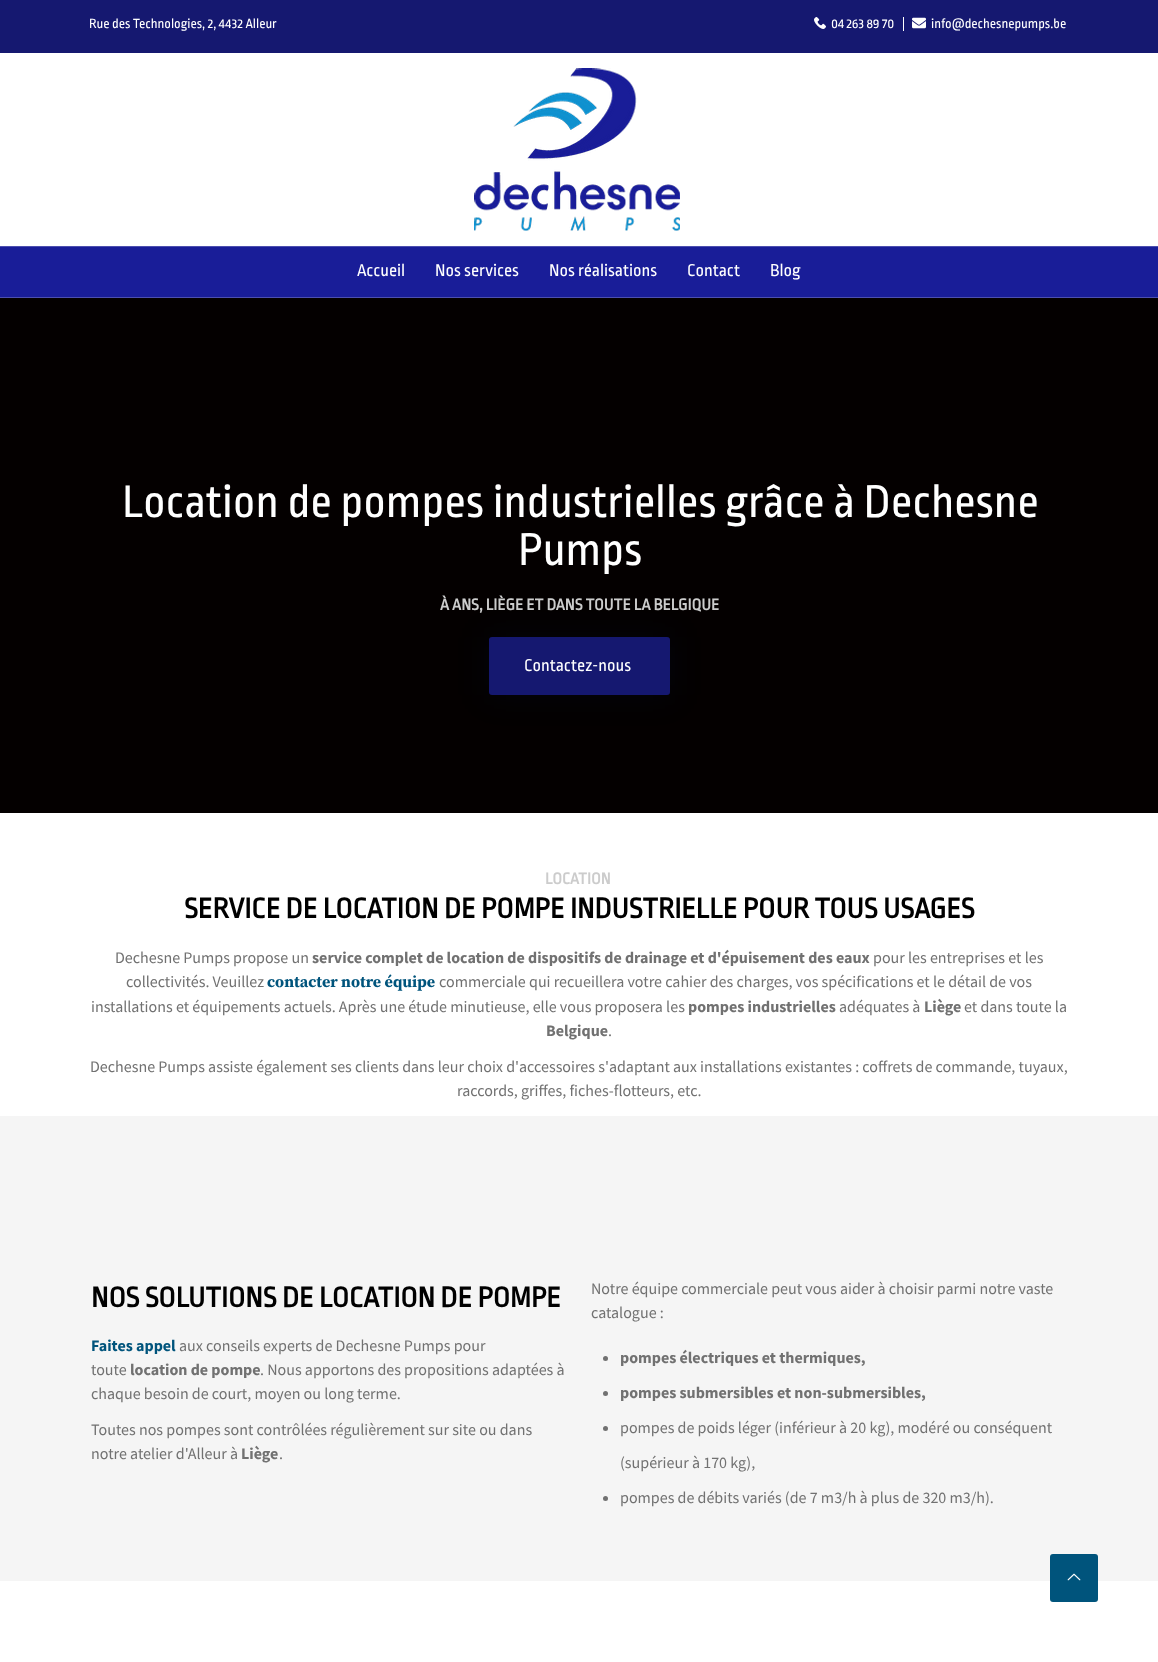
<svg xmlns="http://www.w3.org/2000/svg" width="1158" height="1662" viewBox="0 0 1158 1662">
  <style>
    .t1 { font: 14px Ropa Sans; fill: #fff; }
    .t2 { font: 18px Ropa Sans; fill: #fff; }
    .t3 { font: 48px Ropa Sans; fill: #fff; }
    .t4 { font: bold 17px Ropa Sans; fill: #ccc; }
    .t5 { font: bold 30px Ropa Sans; fill: #000; }
    .t6 { font: 16px Source Sans Pro; fill: #717171; }
    .t7 { font: bold 16px Source Sans Pro; fill: #717171; }
    .t8 { font: bold 16px Source Serif Pro; fill: #00547c; }
    .t9 { font: bold 16px Source Sans Pro; fill: #00547c; }
  </style>
  <rect width="100%" height="100%" fill="#fff"/>
  <rect x="0" y="0" width="1158" height="53" fill="#151870"/>
  <text x="89" y="28" class="t1">Rue des Technologies, 2, 4432 Alleur</text>
  <image x="814" y="17" width="12" height="12" href="images/1.png"/>
  <text x="831" y="28" class="t1">04 263 89 70</text>
  <rect x="903" y="17" width="1" height="14" fill="#fff"/>
  <image x="912" y="17" width="14" height="12" href="images/2.png"/>
  <text x="931" y="28" class="t1">info@dechesnepumps.be</text>
  <image x="474" y="68" width="206" height="163" href="images/3.png"/>
  <rect x="0" y="247" width="1158" height="50" fill="#191d98"/>
  <rect x="0" y="246" width="1158" height="1" fill="#4c4faf"/>
  <text x="357" y="276" class="t2">Accueil</text>
  <text x="435" y="276" class="t2">Nos services</text>
  <text x="549" y="276" class="t2">Nos réalisations</text>
  <text x="687" y="276" class="t2">Contact</text>
  <text x="770" y="276" class="t2">Blog</text>
  <rect x="0" y="297" width="1158" height="1" fill="#4c4faf"/>
  <rect x="0" y="298" width="1158" height="515" fill="#040000"/>
  <text x="122" y="517" class="t3">Location de pompes industrielles grâce à Dechesne</text>
  <text x="518" y="565" class="t3">Pumps</text>
  <text x="440" y="610" class="t4">À ANS, LIÈGE ET DANS TOUTE LA BELGIQUE</text>
  <rect x="489" y="637" width="181" height="58" rx="3" fill="#02163a33" filter="blur(15px)"/>
  <rect x="489" y="637" width="181" height="58" rx="3" fill="#151870"/>
  <text x="524" y="671" class="t2">Contactez-nous</text>
  <text x="545" y="884" class="t4">LOCATION</text>
  <text x="184" y="918" class="t5">SERVICE DE LOCATION DE POMPE INDUSTRIELLE POUR TOUS USAGES</text>
  <text x="115" y="963" class="t6">Dechesne Pumps propose un</text>
  <text x="312" y="963" class="t7">service complet de location de dispositifs de drainage et d'épuisement des eaux</text>
  <text x="873" y="963" class="t6">pour les entreprises et les</text>
  <text x="126" y="987" class="t6">collectivités. Veuillez</text>
  <text x="267" y="987" class="t8">contacter notre équipe</text>
  <text x="439" y="987" class="t6">commerciale qui recueillera votre cahier des charges, vos spécifications et le détail de vos</text>
  <text x="91" y="1012" class="t6">installations et équipements actuels. Après une étude minutieuse, elle vous proposera les</text>
  <text x="688" y="1012" class="t7">pompes industrielles</text>
  <text x="839" y="1012" class="t6">adéquates à</text>
  <text x="924" y="1012" class="t7">Liège</text>
  <text x="964" y="1012" class="t6">et dans toute la</text>
  <text x="546" y="1036" class="t7">Belgique</text>
  <text x="608" y="1036" class="t6">.</text>
  <text x="90" y="1072" class="t6">Dechesne Pumps assiste également ses clients dans leur choix d'accessoires s'adaptant aux installations existantes : coffrets de commande, tuyaux,</text>
  <text x="457" y="1096" class="t6">raccords, griffes, fiches-flotteurs, etc.</text>
  <rect x="0" y="1116" width="1158" height="465" fill="#f5f5f5"/>
  <text x="91" y="1307" class="t5">NOS SOLUTIONS DE LOCATION DE POMPE</text>
  <text x="91" y="1351" class="t9">Faites appel</text>
  <text x="179" y="1351" class="t6">aux conseils experts de Dechesne Pumps pour</text>
  <text x="91" y="1375" class="t6">toute</text>
  <text x="130" y="1375" class="t7">location de pompe</text>
  <text x="260" y="1375" class="t6">. Nous apportons des propositions adaptées à</text>
  <text x="91" y="1399" class="t6">chaque besoin de court, moyen ou long terme.</text>
  <text x="91" y="1435" class="t6">Toutes nos pompes sont contrôlées régulièrement sur site ou dans</text>
  <text x="91" y="1459" class="t6">notre atelier d'Alleur à</text>
  <text x="241" y="1459" class="t7">Liège</text>
  <text x="279" y="1459" class="t6">.</text>
  <text x="591" y="1294" class="t6">Notre équipe commerciale peut vous aider à choisir parmi notre vaste</text>
  <text x="591" y="1318" class="t6">catalogue :</text>
  <circle cx="605.5" cy="1358.5" r="2.5" fill="#717171"/>
  <text x="620" y="1363" class="t7">pompes électriques et thermiques,</text>
  <circle cx="605.5" cy="1393.5" r="2.5" fill="#717171"/>
  <text x="620" y="1398" class="t7">pompes submersibles et non-submersibles,</text>
  <circle cx="605.5" cy="1428.5" r="2.5" fill="#717171"/>
  <text x="620" y="1433" class="t6">pompes de poids léger (inférieur à 20 kg), modéré ou conséquent</text>
  <text x="620" y="1468" class="t6">(supérieur à 170 kg),</text>
  <circle cx="605.5" cy="1498.5" r="2.5" fill="#717171"/>
  <text x="620" y="1503" class="t6">pompes de débits variés (de 7 m3/h à plus de 320 m3/h).</text>
  <rect x="1050" y="1554" width="48" height="48" rx="3" fill="#00547c"/>
  <image x="1067" y="1573" width="14" height="8" href="images/4.png"/>
</svg>
